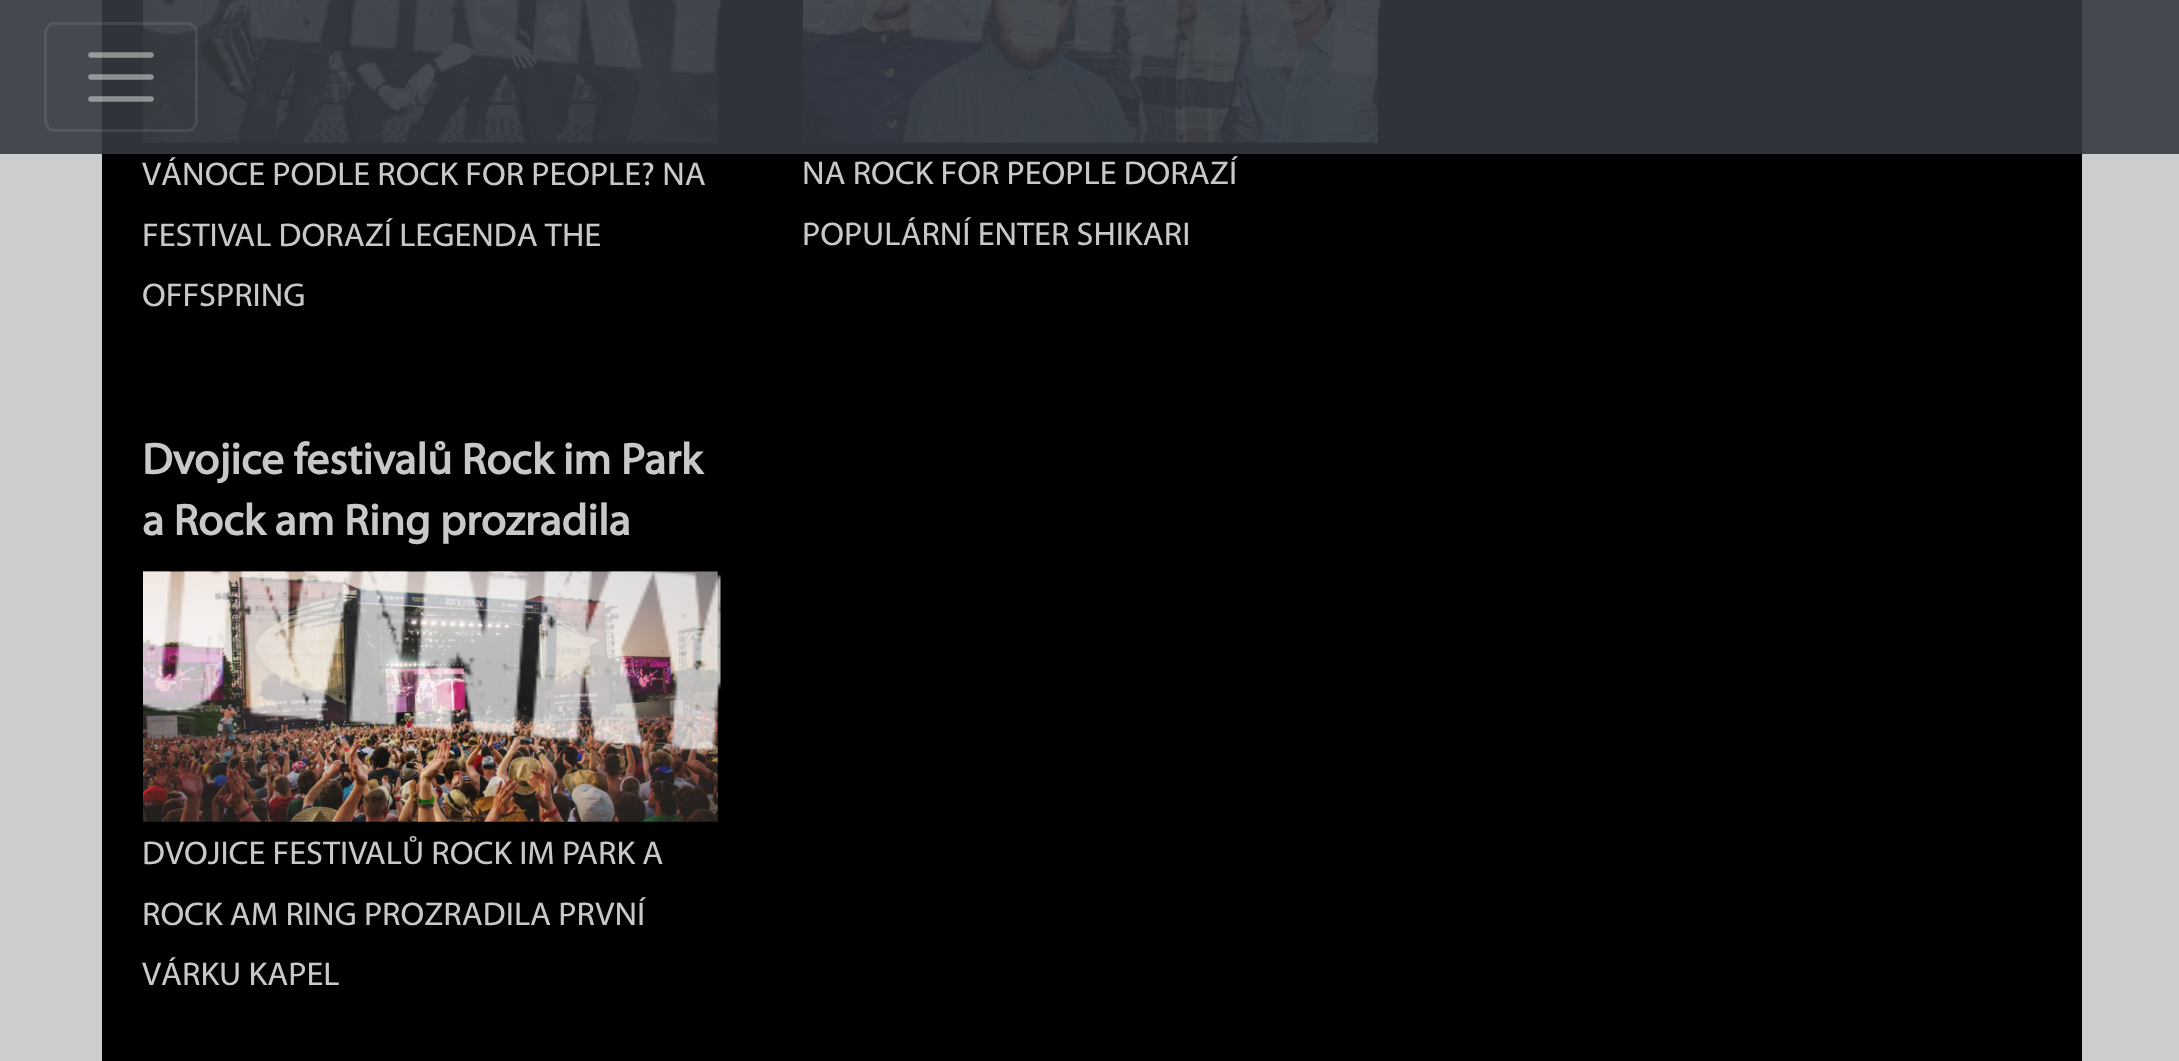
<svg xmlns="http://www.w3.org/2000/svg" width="2179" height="1061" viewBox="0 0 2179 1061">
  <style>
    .t1 { font: 33px Myriad; fill: #c8c8c8; }
    .t2 { font: bold 44px Myriad; fill: #c8c8c8; }
  </style>
  <rect width="100%" height="100%" fill="#cdcdcd"/>
  <rect x="0" y="0" width="2179" height="154" fill="#43494e"/>
  <rect x="102" y="0" width="1980" height="154" fill="#2f343a"/>
  <image x="143" y="0" width="575" height="143" href="images/1.png"/>
  <image x="143" y="0" width="578" height="76" href="images/2.png"/>
  <rect x="45.5" y="23.5" width="151" height="107" rx="9.5" fill="none" stroke="#ffffff17" stroke-width="3"/>
  <path d="M91 55H151M91 77H151M91 99H151" fill="none" stroke="#ffffff73" stroke-width="5.5" stroke-linecap="round"/>
  <rect x="102" y="154" width="1980" height="907" fill="#000"/>
  <text x="142" y="185" class="t1">VÁNOCE PODLE ROCK FOR PEOPLE? NA</text>
  <text x="142" y="246" class="t1">FESTIVAL DORAZÍ LEGENDA THE</text>
  <text x="142" y="306" class="t1">OFFSPRING</text>
  <image x="803" y="0" width="575" height="143" href="images/3.png"/>
  <image x="803" y="0" width="578" height="76" href="images/4.png"/>
  <text x="802" y="184" class="t1">NA ROCK FOR PEOPLE DORAZÍ</text>
  <text x="802" y="245" class="t1">POPULÁRNÍ ENTER SHIKARI</text>
  <text x="142" y="474" class="t2">Dvojice festivalů Rock im Park</text>
  <text x="142" y="535" class="t2">a Rock am Ring prozradila</text>
  <image x="143" y="571" width="575" height="251" href="images/5.png"/>
  <image x="143" y="571" width="578" height="182" href="images/6.png"/>
  <text x="142" y="864" class="t1">DVOJICE FESTIVALŮ ROCK IM PARK A</text>
  <text x="142" y="925" class="t1">ROCK AM RING PROZRADILA PRVNÍ</text>
  <text x="142" y="985" class="t1">VÁRKU KAPEL</text>
</svg>
